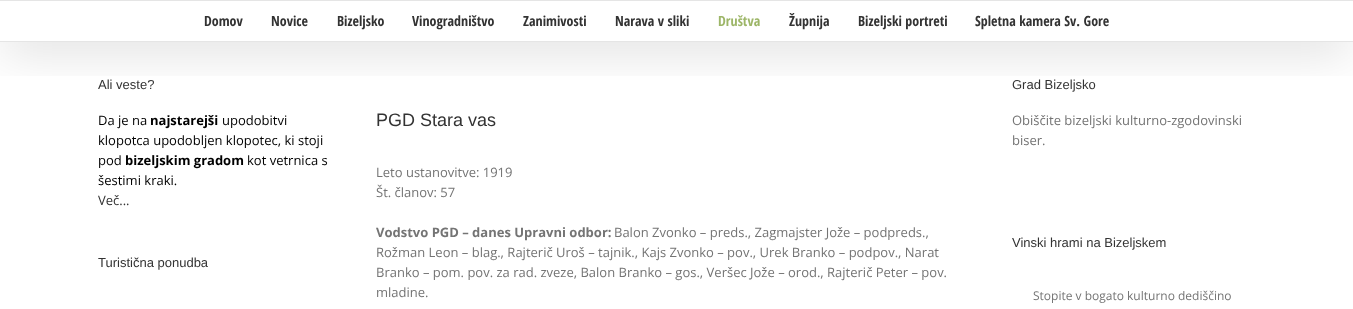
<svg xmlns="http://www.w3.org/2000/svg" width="1353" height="309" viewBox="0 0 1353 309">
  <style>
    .t1 { font: bold 14px Open Sans Condensed; fill: #333; }
    .t2 { font: bold 14px Open Sans Condensed; fill: #9db668; }
    .t3 { font: 13px Liberation Sans; fill: #333; }
    .t4 { font: 13px Open Sans; fill: #000; }
    .t5 { font: bold 13px Open Sans; fill: #000; }
    .t6 { font: 13px Open Sans; fill: #333; }
    .t7 { font: 18px Liberation Sans; fill: #333; }
    .t8 { font: 13px Open Sans; fill: #747474; }
    .t9 { font: bold 13px Open Sans; fill: #747474; }
    .t10 { font: 12px Open Sans; fill: #747474; }
  </style>
  <defs>
    <clipPath id="clip1"><rect x="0" y="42" width="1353" height="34"/></clipPath>
  </defs>
  <rect width="100%" height="100%" fill="#fff"/>
  <g clip-path="url(#clip1)">
    <rect x="2" y="12" width="1349" height="38" fill="#00000024" filter="blur(25px)"/>
  </g>
  <rect x="0" y="0" width="1353" height="1" fill="#e5e5e5"/>
  <rect x="0" y="41" width="1353" height="1" fill="#e5e5e5"/>
  <text x="204" y="26" class="t1">Domov</text>
  <text x="271" y="26" class="t1">Novice</text>
  <text x="337" y="26" class="t1">Bizeljsko</text>
  <text x="412" y="26" class="t1">Vinogradništvo</text>
  <text x="523" y="26" class="t1">Zanimivosti</text>
  <text x="615" y="26" class="t1">Narava v sliki</text>
  <text x="718" y="26" class="t2">Društva</text>
  <text x="789" y="26" class="t1">Župnija</text>
  <text x="858" y="26" class="t1">Bizeljski portreti</text>
  <text x="975" y="26" class="t1">Spletna kamera Sv. Gore</text>
  <text x="98" y="89" class="t3">Ali veste?</text>
  <text x="98" y="125" class="t4">Da je na</text>
  <text x="150" y="125" class="t5">najstarejši</text>
  <text x="222" y="125" class="t4">upodobitvi</text>
  <text x="98" y="145" class="t4">klopotca upodobljen klopotec, ki stoji</text>
  <text x="98" y="165" class="t4">pod</text>
  <text x="125" y="165" class="t5">bizeljskim gradom</text>
  <text x="247" y="165" class="t4">kot vetrnica s</text>
  <text x="98" y="185" class="t4">šestimi kraki.</text>
  <text x="98" y="205" class="t6">Več...</text>
  <text x="98" y="267" class="t3">Turistična ponudba</text>
  <text x="376" y="126" class="t7">PGD Stara vas</text>
  <text x="376" y="177" class="t8">Leto ustanovitve: 1919</text>
  <text x="376" y="197" class="t8">Št. članov: 57</text>
  <text x="376" y="237" class="t9">Vodstvo PGD – danes Upravni odbor:</text>
  <text x="614" y="237" class="t8">Balon Zvonko – preds., Zagmajster Jože – podpreds.,</text>
  <text x="376" y="257" class="t8">Rožman Leon – blag., Rajterič Uroš – tajnik., Kajs Zvonko – pov., Urek Branko – podpov., Narat</text>
  <text x="376" y="277" class="t8">Branko – pom. pov. za rad. zveze, Balon Branko – gos., Veršec Jože – orod., Rajterič Peter – pov.</text>
  <text x="376" y="297" class="t8">mladine.</text>
  <text x="1012" y="89" class="t3">Grad Bizeljsko</text>
  <text x="1012" y="125" class="t8">Obiščite bizeljski kulturno-zgodovinski</text>
  <text x="1012" y="145" class="t8">biser.</text>
  <text x="1012" y="247" class="t3">Vinski hrami na Bizeljskem</text>
  <text x="1033" y="300" class="t10">Stopite v bogato kulturno dediščino</text>
</svg>
